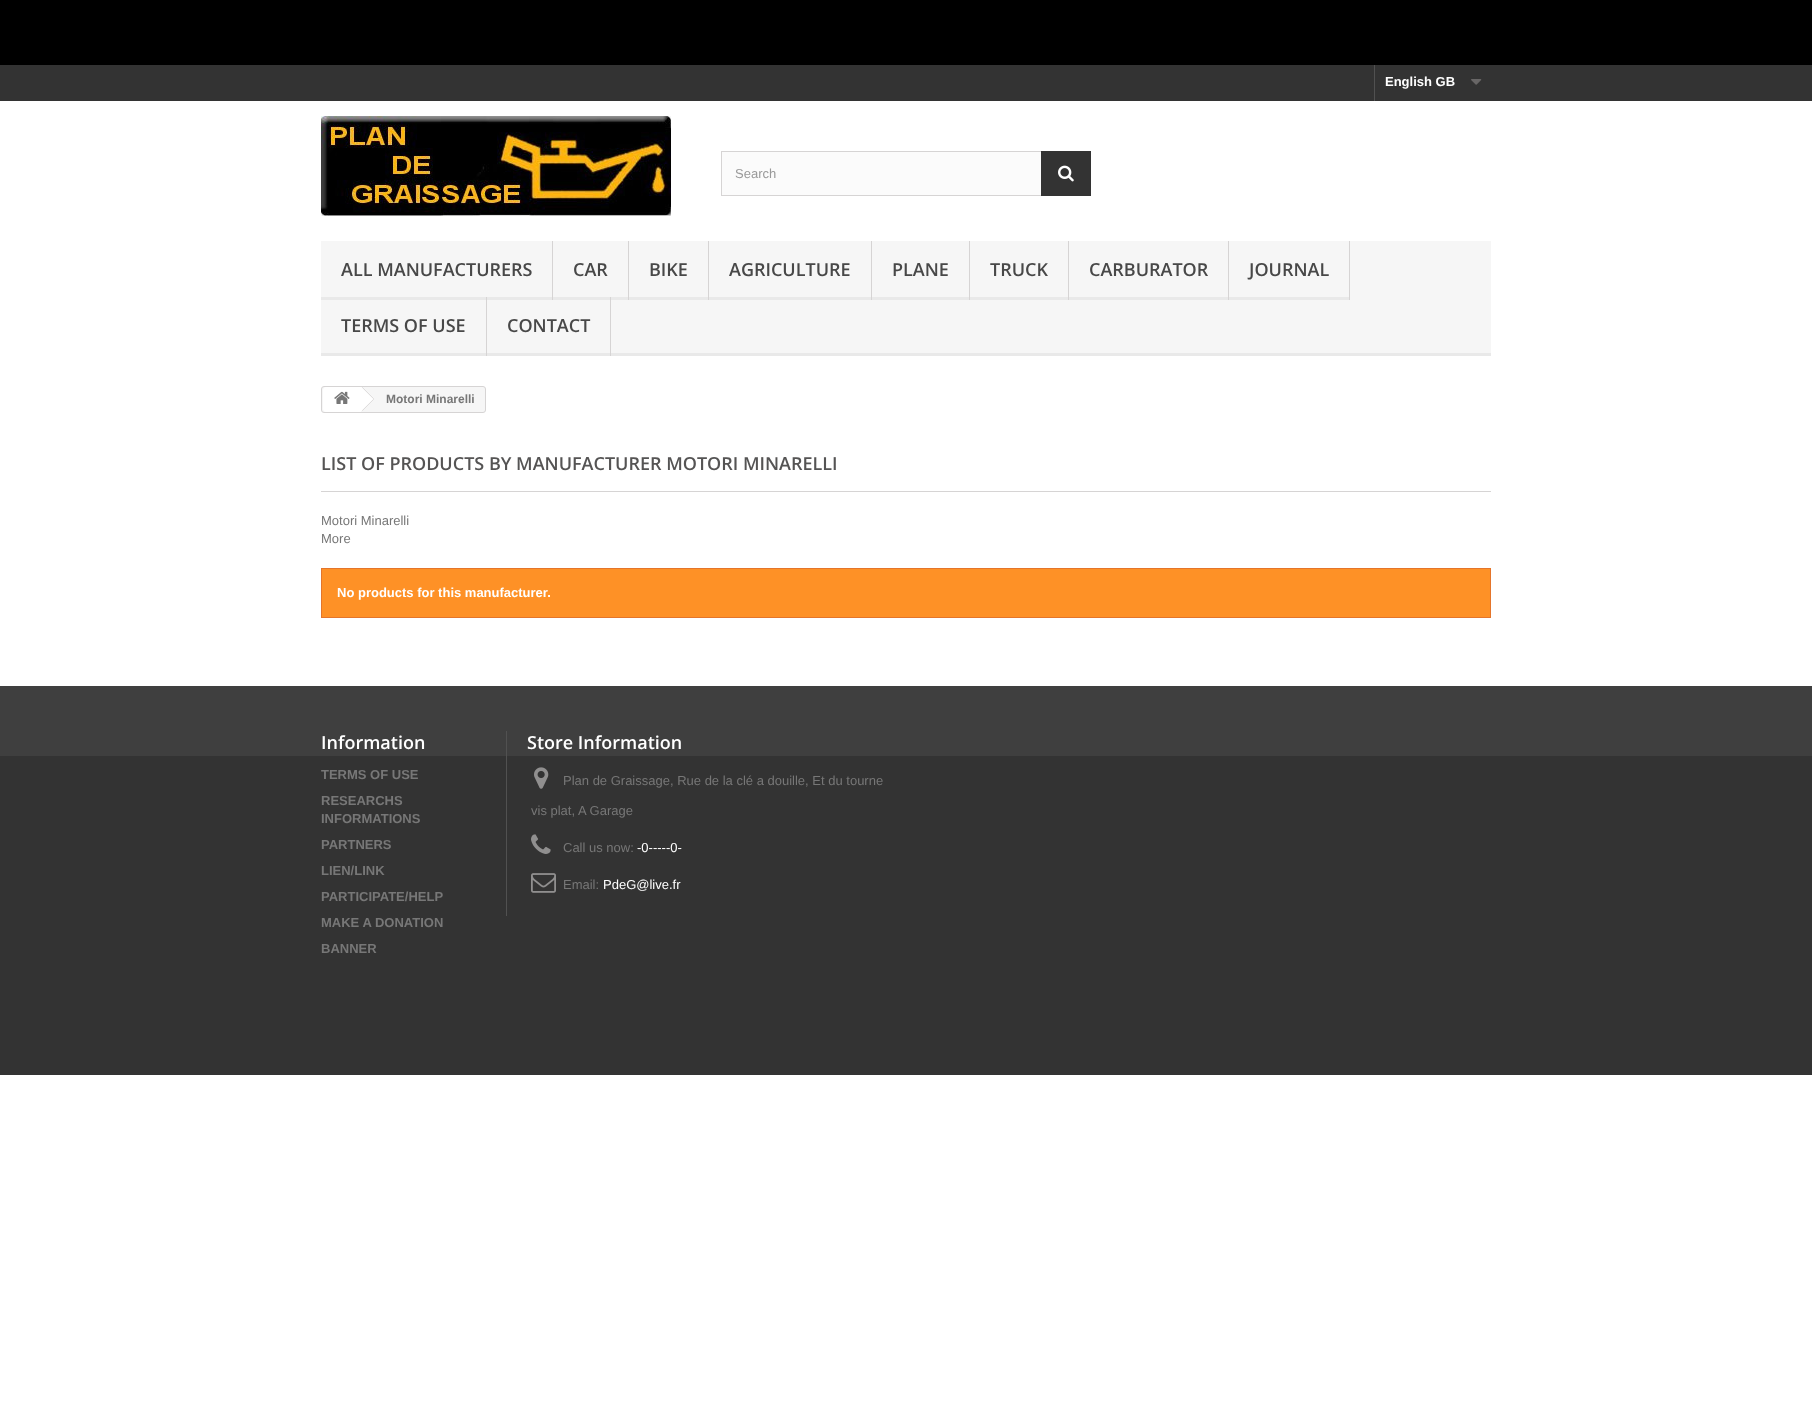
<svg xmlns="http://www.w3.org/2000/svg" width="1812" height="1416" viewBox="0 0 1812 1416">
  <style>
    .t1 { font: bold 13px Liberation Sans; fill: #fff; }
    .t2 { font: 13px Liberation Sans; fill: #999; }
    .t3 { font: 600 18px Open Sans; fill: #484848; }
    .t4 { font: bold 12px Liberation Sans; fill: #777; }
    .t5 { font: 600 18px Open Sans; fill: #555454; }
    .t6 { font: 13px Liberation Sans; fill: #777; }
    .t7 { font: 600 18px Open Sans; fill: #fff; }
    .t8 { font: bold 13px Liberation Sans; fill: #777; }
    .t9 { font: 13px Liberation Sans; fill: #fff; }
  </style>
  <rect width="100%" height="100%" fill="#fff"/>
  <rect x="0" y="0" width="1812" height="65" fill="#000"/>
  <rect x="0" y="65" width="1812" height="36" fill="#333"/>
  <rect x="1374" y="65" width="1" height="36" fill="#515151"/>
  <text x="1385" y="86" class="t1">English GB</text>
  <image x="1471" y="79" width="11" height="6" href="images/1.png"/>
  <image x="321" y="116" width="350" height="100" href="images/2.png"/>
  <rect x="722" y="152" width="319" height="43" fill="#fbfbfb"/>
  <rect x="721.5" y="151.5" width="369" height="44" fill="none" stroke="#d6d4d4"/>
  <text x="735" y="178" class="t2">Search</text>
  <rect x="1041" y="151" width="50" height="45" fill="#333"/>
  <image x="1058" y="165" width="16" height="17" href="images/3.png"/>
  <rect x="321" y="241" width="1170" height="112" fill="#f6f6f6"/>
  <rect x="321" y="353" width="1170" height="3" fill="#e9e9e9"/>
  <rect x="552" y="241" width="1" height="59" fill="#d6d4d4"/>
  <rect x="321" y="297" width="231" height="3" fill="#e9e9e9"/>
  <text x="341" y="276" class="t3">ALL MANUFACTURERS</text>
  <rect x="628" y="241" width="1" height="59" fill="#d6d4d4"/>
  <rect x="553" y="297" width="75" height="3" fill="#e9e9e9"/>
  <text x="573" y="276" class="t3">CAR</text>
  <rect x="708" y="241" width="1" height="59" fill="#d6d4d4"/>
  <rect x="629" y="297" width="79" height="3" fill="#e9e9e9"/>
  <text x="649" y="276" class="t3">BIKE</text>
  <rect x="871" y="241" width="1" height="59" fill="#d6d4d4"/>
  <rect x="709" y="297" width="162" height="3" fill="#e9e9e9"/>
  <text x="729" y="276" class="t3">AGRICULTURE</text>
  <rect x="969" y="241" width="1" height="59" fill="#d6d4d4"/>
  <rect x="872" y="297" width="97" height="3" fill="#e9e9e9"/>
  <text x="892" y="276" class="t3">PLANE</text>
  <rect x="1068" y="241" width="1" height="59" fill="#d6d4d4"/>
  <rect x="970" y="297" width="98" height="3" fill="#e9e9e9"/>
  <text x="990" y="276" class="t3">TRUCK</text>
  <rect x="1228" y="241" width="1" height="59" fill="#d6d4d4"/>
  <rect x="1069" y="297" width="159" height="3" fill="#e9e9e9"/>
  <text x="1089" y="276" class="t3">CARBURATOR</text>
  <rect x="1349" y="241" width="1" height="59" fill="#d6d4d4"/>
  <rect x="1229" y="297" width="120" height="3" fill="#e9e9e9"/>
  <text x="1249" y="276" class="t3">JOURNAL</text>
  <rect x="486" y="297" width="1" height="59" fill="#d6d4d4"/>
  <text x="341" y="332" class="t3">TERMS OF USE</text>
  <rect x="610" y="297" width="1" height="59" fill="#d6d4d4"/>
  <text x="507" y="332" class="t3">CONTACT</text>
  <rect x="321.5" y="386.5" width="164" height="26" rx="2.5" fill="#f6f6f6" stroke="#d6d4d4"/>
  <path d="M326 387H361V412H326C324.5 412 323 410.5 323 409V390C323 388.5 324.5 387 326 387Z" fill="#fff"/>
  <image x="334" y="391" width="16" height="13" href="images/4.png"/>
  <path d="M363.5 387.5L373.5 397.5C374 398.5 374 399.5 373.5 400.5L363.5 410.5C362.5 411 361.5 411 360.5 410.5L350.5 400.5C350 399.5 350 398.5 350.5 397.5L360.5 387.5C361.5 387 362.5 387 363.5 387.5Z" fill="#fff"/>
  <path d="M362.5 387L374 398.5L373.5 399L362 387.5ZM373.5 399L374 399.5L362.5 411L362 410.5Z" fill="#d6d4d4"/>
  <text x="386" y="403" class="t4">Motori Minarelli</text>
  <text x="321" y="470" class="t5">LIST OF PRODUCTS BY MANUFACTURER MOTORI MINARELLI</text>
  <rect x="321" y="491" width="1170" height="1" fill="#d6d4d4"/>
  <text x="321" y="525" class="t6">Motori Minarelli</text>
  <text x="321" y="543" class="t6">More</text>
  <rect x="321.5" y="568.5" width="1169" height="49" fill="#fe9126" stroke="#e4752b"/>
  <text x="337" y="597" class="t1">No products for this manufacturer.</text>
  <rect x="0" y="756" width="1812" height="319" fill="#333"/>
  <rect x="0" y="686" width="1812" height="70" fill="#3f3f3f"/>
  <text x="321" y="749" class="t7">Information</text>
  <text x="321" y="779" class="t8">TERMS OF USE</text>
  <text x="321" y="805" class="t8">RESEARCHS</text>
  <text x="321" y="823" class="t8">INFORMATIONS</text>
  <text x="321" y="849" class="t8">PARTNERS</text>
  <text x="321" y="875" class="t8">LIEN/LINK</text>
  <text x="321" y="901" class="t8">PARTICIPATE/HELP</text>
  <text x="321" y="927" class="t8">MAKE A DONATION</text>
  <text x="321" y="953" class="t8">BANNER</text>
  <rect x="506" y="731" width="1" height="185" fill="#515151"/>
  <text x="527" y="749" class="t7">Store Information</text>
  <image x="534" y="767" width="15" height="22" href="images/5.png"/>
  <text x="563" y="785" class="t6">Plan de Graissage, Rue de la clé a douille, Et du tourne</text>
  <text x="531" y="815" class="t6">vis plat,</text>
  <text x="578" y="815" class="t6">A Garage</text>
  <image x="531" y="834" width="20" height="20" href="images/6.png"/>
  <text x="563" y="852" class="t6">Call us now:</text>
  <text x="637" y="852" class="t9">-0-----0-</text>
  <image x="531" y="873" width="25" height="20" href="images/7.png"/>
  <text x="563" y="889" class="t6">Email:</text>
  <text x="603" y="889" class="t9">PdeG@live.fr</text>
</svg>
